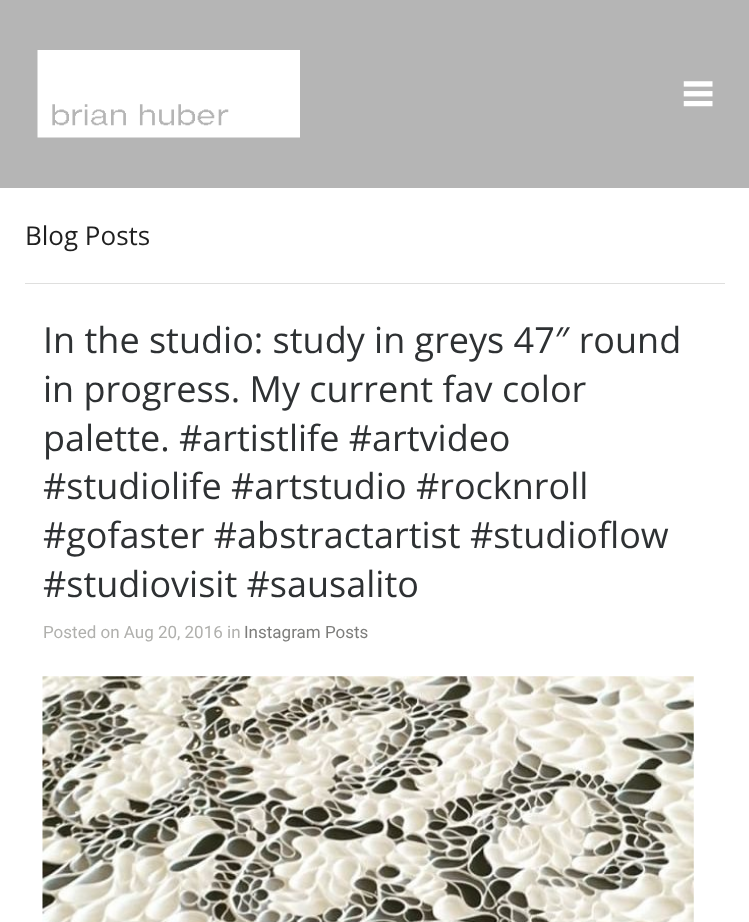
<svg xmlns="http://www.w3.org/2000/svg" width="749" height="922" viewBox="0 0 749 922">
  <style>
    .t1 { font: 26px Open Sans; fill: #1f1f1f; }
    .t2 { font: 36px Open Sans; fill: #2e3133; }
    .t3 { font: 17px Roboto; fill: #b0b0ad; }
    .t4 { font: 17px Roboto; fill: #7d7d7b; }
  </style>
  <rect width="100%" height="100%" fill="#fff"/>
  <rect x="0" y="0" width="749" height="188" fill="#b5b5b5"/>
  <image x="37" y="50" width="263" height="88" href="images/1.png"/>
  <image x="683" y="81" width="30" height="26" href="images/2.png"/>
  <rect x="25" y="283" width="700" height="1" fill="#dfdfde"/>
  <text x="25" y="245" class="t1">Blog Posts</text>
  <text x="43" y="353" class="t2">In the studio: study in greys 47″ round</text>
  <text x="43" y="402" class="t2">in progress. My current fav color</text>
  <text x="43" y="451" class="t2">palette. #artistlife #artvideo</text>
  <text x="43" y="499" class="t2">#studiolife #artstudio #rocknroll</text>
  <text x="43" y="548" class="t2">#gofaster #abstractartist #studioflow</text>
  <text x="43" y="597" class="t2">#studiovisit #sausalito</text>
  <text x="43" y="638" class="t3">Posted on Aug 20, 2016 in</text>
  <text x="244" y="638" class="t4">Instagram Posts</text>
  <image x="42" y="676" width="652" height="246" href="images/3.png"/>
</svg>
